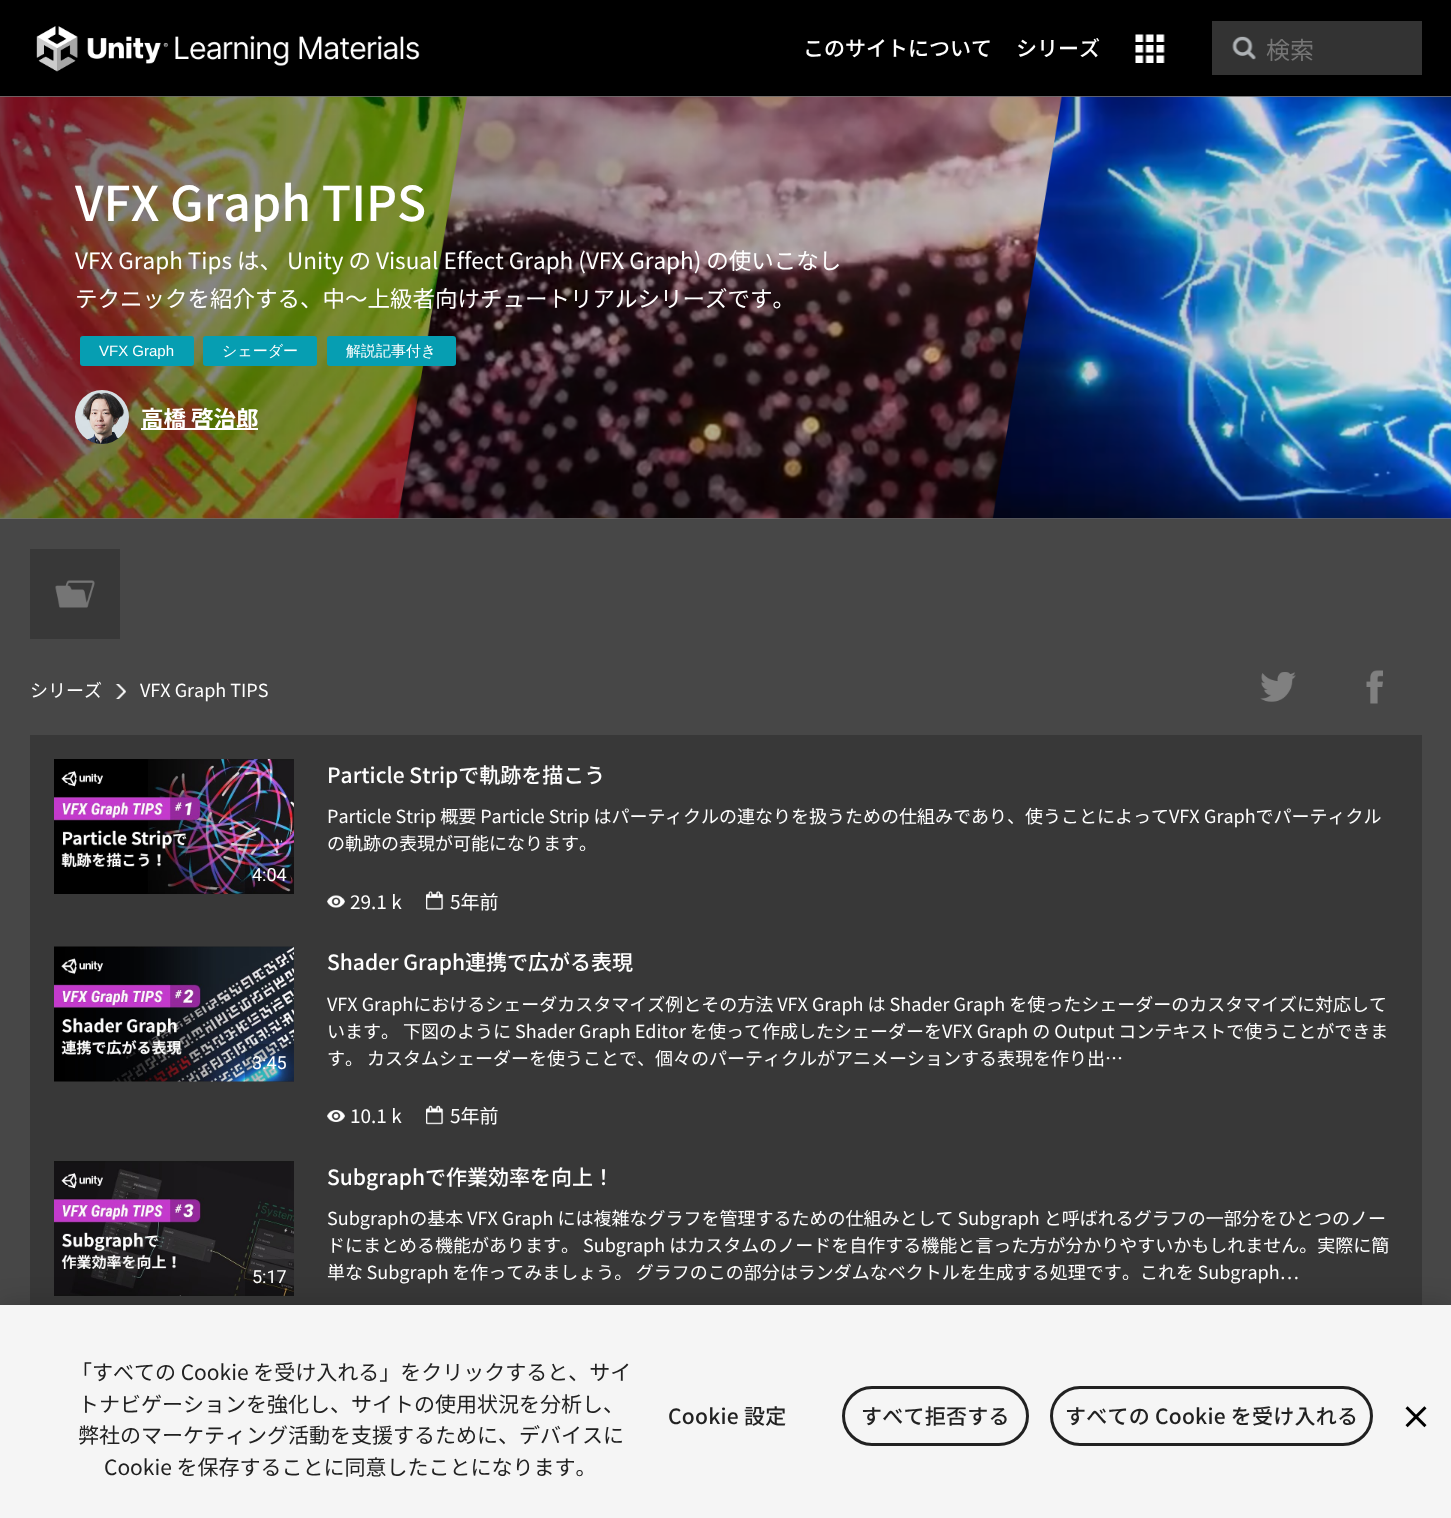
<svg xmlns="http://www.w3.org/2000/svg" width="1451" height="1518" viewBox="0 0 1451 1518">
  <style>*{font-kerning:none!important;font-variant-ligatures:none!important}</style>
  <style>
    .t1 { font: 500 21px Noto Sans JP; fill: #fff; }
    .t2 { font: 24px Noto Sans JP; fill: #757575; }
    .t3 { font: 500 48px Noto Sans JP; fill: #fff; }
    .t4 { font: 22.5px Noto Sans JP; fill: #fff; }
    .t5 { font: 15px Liberation Sans; fill: #fff; }
    .t6 { font: 500 15px WenQuanYi Zen Hei; fill: #fff; }
    .t7 { font: bold 22.5px Noto Sans JP; fill: #fff; }
    .t8 { font: 18px Noto Sans JP; fill: #fff; }
    .t9 { font: 18px Roboto; fill: #fff; }
    .t10 { font: 19px Noto Sans JP; fill: #fff; }
    .t11 { font: 21px Noto Sans JP; fill: #212121; }
    .t12 { font: 500 21px Noto Sans JP; letter-spacing: 0.25px; fill: #212121; }
  </style>
  <rect width="100%" height="100%" fill="#474747"/>
  <rect x="0" y="0" width="1451" height="96" fill="#000"/>
  <image x="36" y="26" width="384" height="46" href="images/1.png"/>
  <text x="803" y="56" class="t1">このサイトについて</text>
  <text x="1016" y="56" class="t1">シリーズ</text>
  <image x="1135" y="34" width="30" height="29" href="images/2.png"/>
  <rect x="1212" y="21" width="210" height="54" fill="#333"/>
  <image x="1232" y="36" width="24" height="24" href="images/3.png"/>
  <text x="1266" y="59" class="t2">検索</text>
  <image x="0" y="96" width="1451" height="423" href="images/4.png"/>
  <text x="75" y="221" class="t3">VFX Graph TIPS</text>
  <text x="75" y="269" class="t4">VFX Graph Tips は、 Unity の Visual Effect Graph (VFX Graph) の使いこなし</text>
  <text x="75" y="307" class="t4">テクニックを紹介する、中～上級者向けチュートリアルシリーズです。</text>
  <rect x="80" y="336" width="114" height="30" rx="3" fill="#069eb2"/>
  <text x="99" y="356" class="t5">VFX Graph</text>
  <rect x="203" y="336" width="114" height="30" rx="3" fill="#069eb2"/>
  <text x="222" y="356" class="t6">シェーダー</text>
  <rect x="327" y="336" width="129" height="30" rx="3" fill="#069eb2"/>
  <text x="346" y="356" class="t6">解説記事付き</text>
  <image x="75" y="390" width="54" height="54" href="images/5.png"/>
  <rect x="141" y="428" width="117" height="2" fill="#fff"/>
  <text x="141" y="427" class="t7">高橋 啓治郎</text>
  <rect x="30" y="549" width="90" height="90" fill="#383838"/>
  <image x="55" y="580" width="40" height="28" href="images/6.png"/>
  <text x="30" y="697" class="t8">シリーズ</text>
  <image x="115" y="684" width="11" height="15" href="images/7.png"/>
  <text x="140" y="697" class="t8">VFX Graph TIPS</text>
  <image x="1260" y="672" width="36" height="30" href="images/8.png"/>
  <image x="1366" y="670" width="17" height="34" href="images/9.png"/>
  <rect x="30" y="735" width="1392" height="570" fill="#383838"/>
  <image x="54" y="759" width="240" height="135" href="images/10.png"/>
  <rect x="245" y="857" width="49" height="37" fill="#00000033"/>
  <text x="252" y="881" class="t9">4:04</text>
  <text x="327" y="783" class="t1">Particle Stripで軌跡を描こう</text>
  <text x="327" y="823" class="t8">Particle Strip 概要 Particle Strip はパーテ</text>
  <text x="665" y="823" class="t8">ィクルの連なりを扱うための仕組みであり、使うことによってVFX</text>
  <text x="1204" y="823" class="t8">Graphでパーティクル</text>
  <text x="327" y="850" class="t8">の軌跡の表現が可能になります。</text>
  <image x="327" y="895" width="18" height="13" href="images/11.png"/>
  <text x="350" y="909" class="t10">29.1 k</text>
  <image x="426" y="891" width="18" height="19" href="images/12.png"/>
  <text x="450" y="909" class="t10">5年前</text>
  <image x="54" y="946" width="240" height="136" href="images/13.png"/>
  <rect x="245" y="1044" width="49" height="38" fill="#00000033"/>
  <text x="252" y="1069" class="t9">3:45</text>
  <text x="327" y="970" class="t1">Shader Graph連携で広がる表現</text>
  <text x="327" y="1011" class="t8">VFX Graphにおけるシェーダカスタマイズ例とその方法 VFX Graph は Shader Graph を使ったシェーダーのカスタマイ</text>
  <text x="1279" y="1011" class="t8">ズに対応して</text>
  <text x="327" y="1038" class="t8">います。 下図のように Shader Graph Editor を使っ</text>
  <text x="744" y="1038" class="t8">て作成したシェーダーをVFX Graph の Output コンテキストで使うことができま</text>
  <text x="327" y="1065" class="t8">す。 カスタムシェーダーを使うことで、個々のパーテ</text>
  <text x="763" y="1065" class="t8">ィクルがアニメーションする表現を作り出…</text>
  <image x="327" y="1110" width="18" height="12" href="images/14.png"/>
  <text x="350" y="1123" class="t10">10.1 k</text>
  <image x="426" y="1105" width="18" height="20" href="images/15.png"/>
  <text x="450" y="1123" class="t10">5年前</text>
  <image x="54" y="1161" width="240" height="135" href="images/16.png"/>
  <rect x="245" y="1259" width="49" height="37" fill="#00000033"/>
  <text x="252" y="1283" class="t9">5:17</text>
  <text x="327" y="1185" class="t1">Subgraphで作業効率を向上！</text>
  <text x="327" y="1225" class="t8">Subgraphの基本 VFX Graph には複雑なグラフを管理するための仕組みとして Subgraph と呼ばれるグラフの一部分をひと</text>
  <text x="1314" y="1225" class="t8">つのノー</text>
  <text x="327" y="1252" class="t8">ドにまとめる機能があります。 Subgraph はカスタムのノードを自作する機能と言った方が分かりやすいかもしれません。実際に簡</text>
  <text x="327" y="1279" word-spacing="-0.5" class="t8">単な Subgraph を作ってみましょう。 グラフのこの部分はランダムなベクトルを生成する処理です</text>
  <text x="1122" y="1279" word-spacing="-0.5" class="t8">。これを Subgraph…</text>
  <rect x="0" y="1305" width="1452" height="213" fill="#00000033" filter="blur(13.5px)"/>
  <rect x="0" y="1305" width="1451" height="213" fill="#f5f5f5"/>
  <text x="71" y="1380" class="t11">「すべての Cookie を受け入れる」をクリックすると、サイ</text>
  <text x="78" y="1412" class="t11">トナビゲーションを強化し、サイトの使用状況を分析し、</text>
  <text x="78" y="1443" class="t11">弊社のマーケティング活動を支援するために、デバイスに</text>
  <text x="104" y="1475" class="t11">Cookie を保存することに同意したことになります。</text>
  <text x="668" y="1424" class="t12">Cookie 設定</text>
  <rect x="843.5" y="1387.5" width="184" height="57" rx="28.5" fill="none" stroke="#212121" stroke-width="3"/>
  <text x="861" y="1424" class="t12">すべて拒否する</text>
  <rect x="1051.5" y="1387.5" width="320" height="57" rx="28.5" fill="none" stroke="#212121" stroke-width="3"/>
  <text x="1065" y="1424" class="t12">すべての Cookie を受け入れる</text>
  <image x="1405" y="1406" width="22" height="22" href="images/17.png"/>
</svg>
